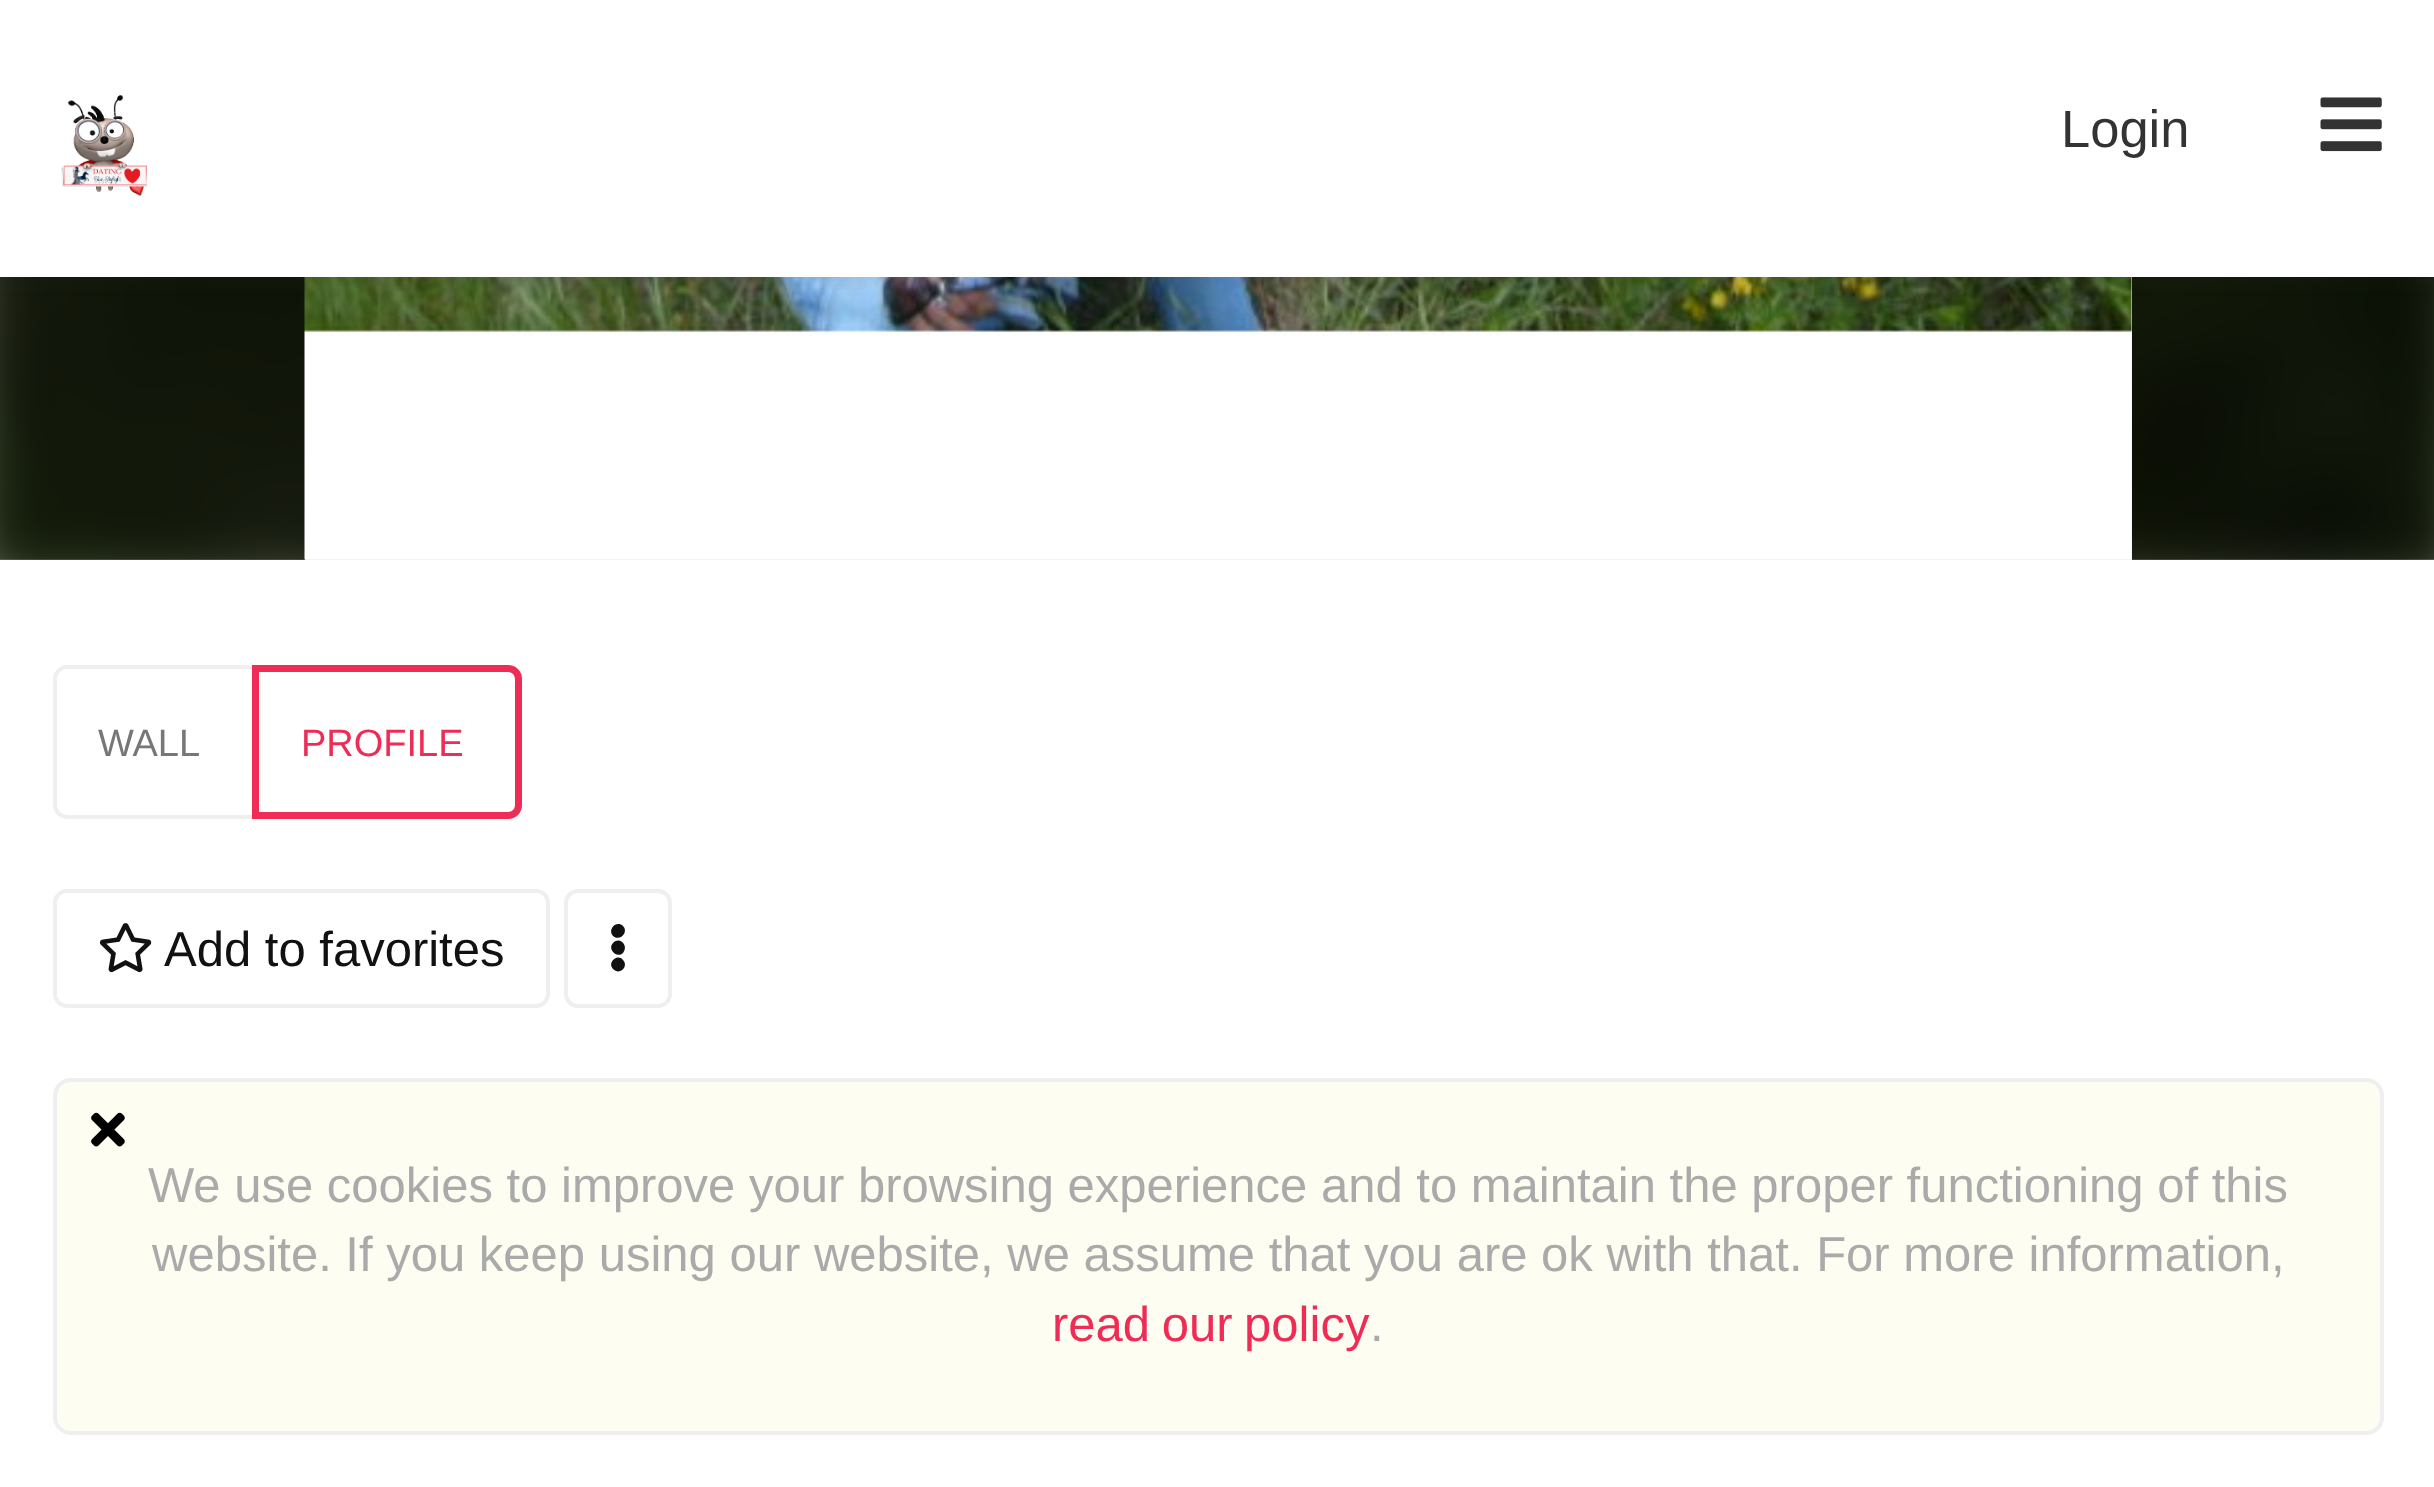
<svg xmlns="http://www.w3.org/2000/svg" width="2434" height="1487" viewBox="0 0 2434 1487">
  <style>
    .t1 { font: 52.5px Liberation Sans; fill: #333; }
    .t2 { font: 38px Liberation Sans; fill: #777; }
    .t3 { font: 38px Liberation Sans; fill: #ee2c55; }
    .t4 { font: 49px Liberation Sans; fill: #111; }
    .t5 { font: 49px Liberation Sans; fill: #aaa; }
    .t6 { font: 49px Liberation Sans; fill: #ee2c55; }
  </style>
  <defs>
    <clipPath id="clip1"><rect x="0" y="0" width="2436" height="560"/></clipPath>
  </defs>
  <rect width="100%" height="100%" fill="#fff"/>
  <image x="0" y="277" width="2434" height="283" href="images/3.png"/>
  <g clip-path="url(#clip1)">
    <rect x="-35" y="-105" width="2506" height="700" fill="#000000bf" filter="blur(35px)"/>
  </g>
  <rect x="305" y="277" width="1827" height="283" fill="#eeeef4"/>
  <image x="304" y="277" width="1828" height="283" href="images/4.png"/>
  <rect x="0" y="7" width="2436" height="277" fill="#34343c1a" filter="blur(7px)"/>
  <rect x="0" y="0" width="2434" height="277" fill="#fff"/>
  <image x="61" y="95" width="87" height="101" href="images/1.png"/>
  <text x="2061" y="147" class="t1">Login</text>
  <image x="2320" y="97" width="62" height="55" href="images/2.png"/>
  <path d="M67 667H254V817H67C60.5 817 55 811.5 55 805V679C55 672.5 60.5 667 67 667Z" fill="none" stroke="#efefef" stroke-width="4"/>
  <text x="98" y="756" class="t2">WALL</text>
  <path d="M255.5 668.5H508C514 668.5 518.5 673 518.5 679V805C518.5 811 514 815.5 508 815.5H255.5Z" fill="#fffffff2" stroke="#ee2c55" stroke-width="7"/>
  <text x="301" y="756" class="t3">PROFILE</text>
  <rect x="55" y="891" width="493" height="115" rx="12" fill="none" stroke="#efefef" stroke-width="4"/>
  <image x="99" y="923" width="53" height="50" href="images/5.png"/>
  <text x="164" y="966" class="t4">Add to favorites</text>
  <rect x="566" y="891" width="104" height="115" rx="12" fill="none" stroke="#efefef" stroke-width="4"/>
  <path d="M613 943C620 936 629 946 623 953C617 959 607 949 613 943ZM613 936C607 929 617 920 623 926C629 932 620 942 613 936ZM613 969C607 963 617 953 623 960C629 966 620 976 613 969Z" fill="#111"/>
  <rect x="55" y="1080" width="2327" height="353" rx="16" fill="#fdfdf1" stroke="#efefef" stroke-width="4"/>
  <image x="91" y="1112" width="34" height="35" href="images/6.png"/>
  <text x="148" y="1202" class="t5">We use cookies to improve your browsing experience and to maintain the proper functioning of this</text>
  <text x="152" y="1271" class="t5">website. If you keep using our website, we assume that you are ok with that. For more information,</text>
  <text x="1052" y="1341" word-spacing="-2" class="t6">read our policy</text>
  <text x="1370" y="1341" class="t5">.</text>
</svg>
